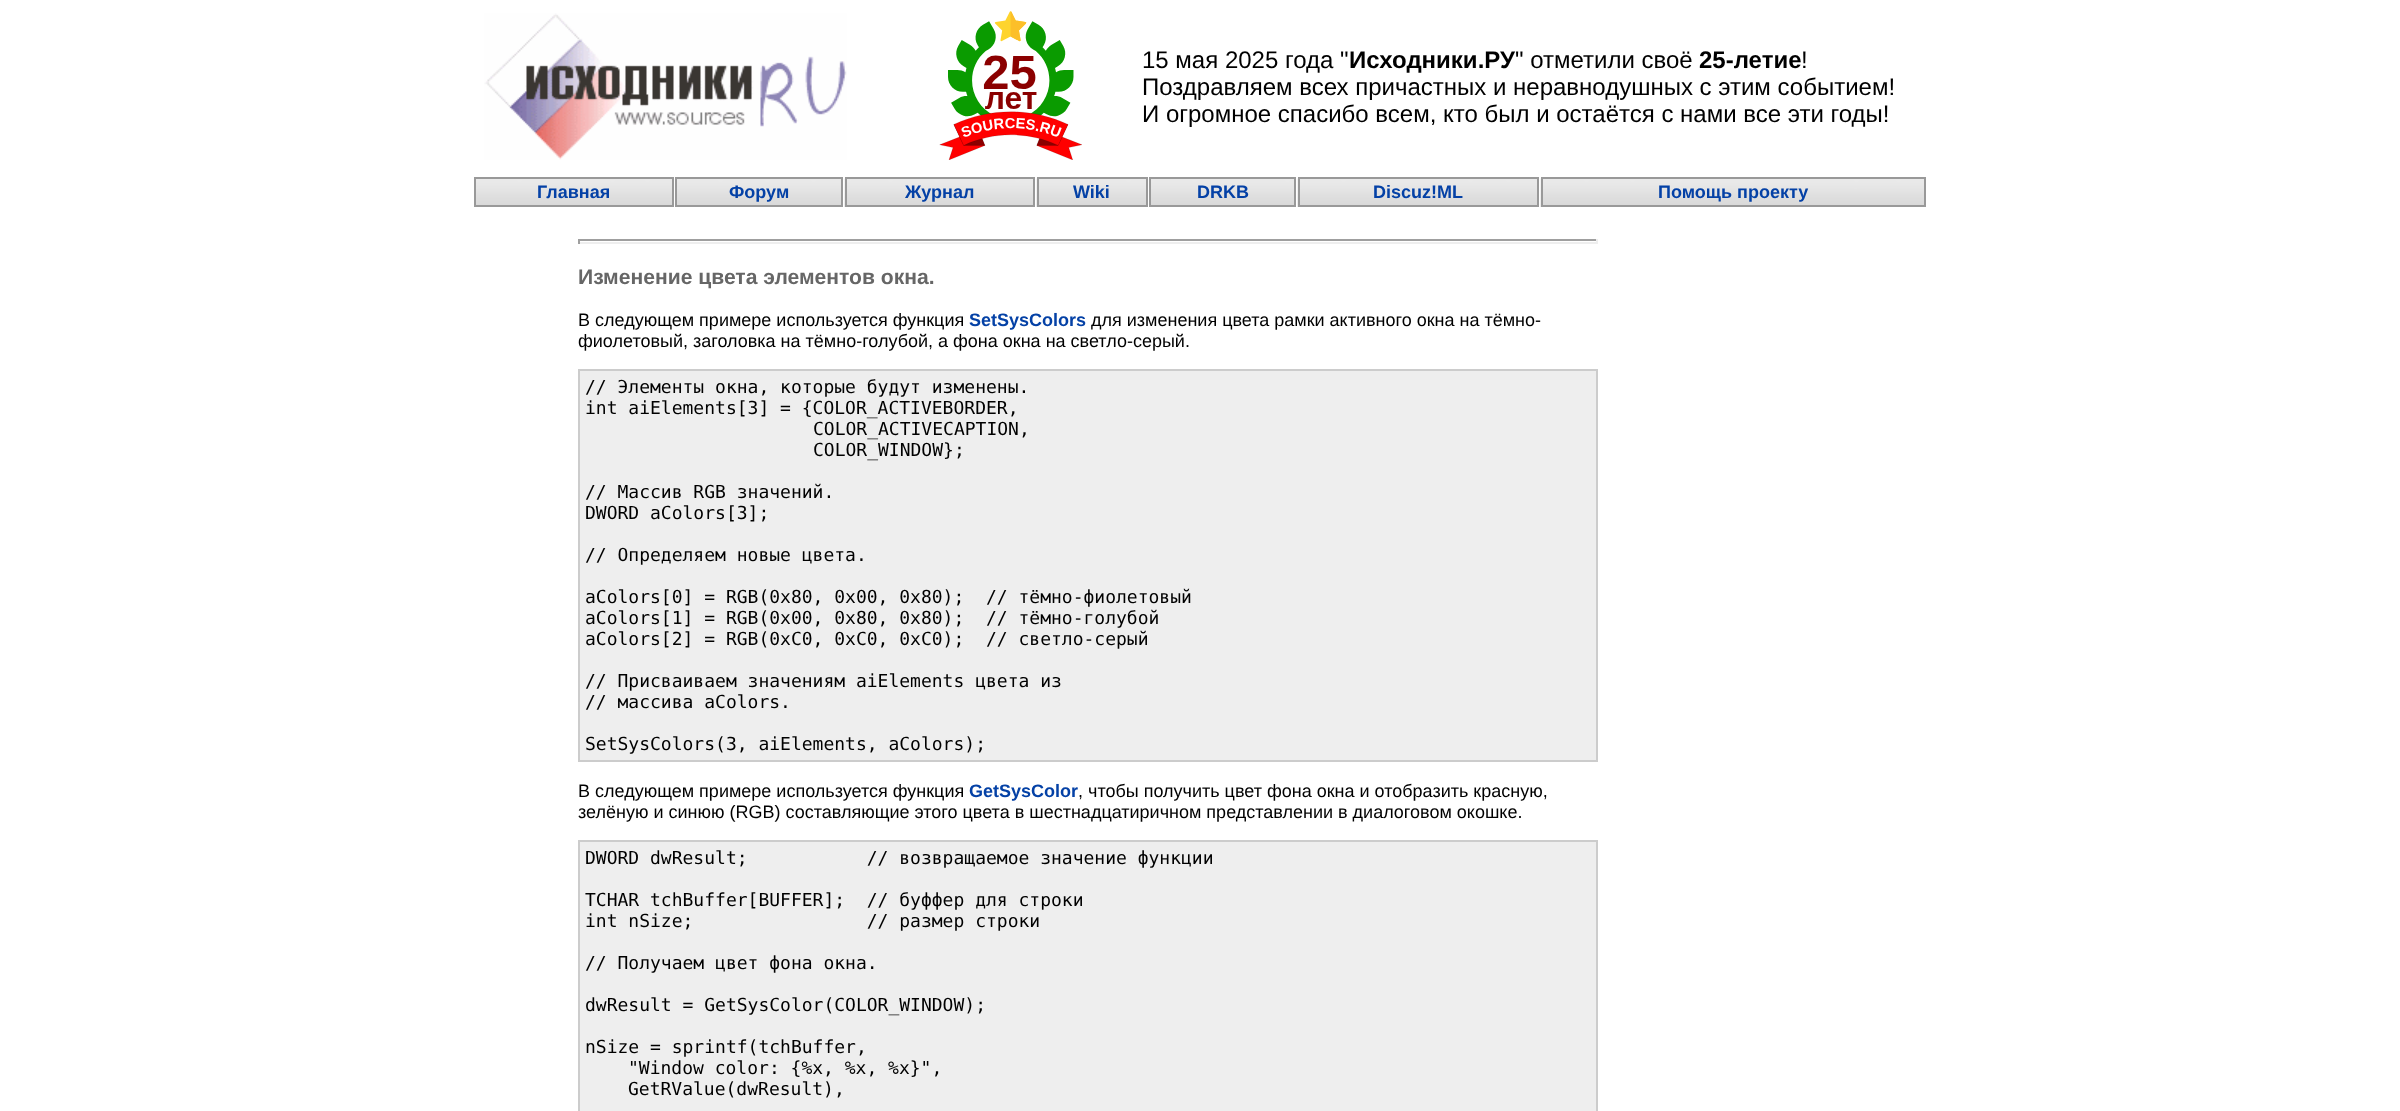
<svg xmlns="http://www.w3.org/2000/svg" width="2400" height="1111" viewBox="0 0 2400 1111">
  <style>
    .t1 { font: 24px Liberation Sans; fill: #000; }
    .t2 { font: bold 24px Liberation Sans; fill: #000; }
    .t3 { font: bold 18px Liberation Sans; fill: #0441a6; }
    .t4 { font: bold 21.1px Liberation Sans; fill: #666; }
    .t5 { font: 18px Liberation Sans; fill: #000; }
    .t6 { font: 18px DejaVu Sans Mono; fill: #000; }
  </style>
  <rect width="100%" height="100%" fill="#fff"/>
  <image x="484" y="13" width="363" height="147" href="images/1.png"/>
  <image x="939" y="11" width="143" height="149" href="images/2.png"/>
  <text x="1142" y="68" class="t1">15 мая 2025 года "</text>
  <text x="1349" y="68" class="t2">Исходники.РУ</text>
  <text x="1515" y="68" class="t1">" отметили своё</text>
  <text x="1699" y="68" class="t2">25-летие</text>
  <text x="1801" y="68" class="t1">!</text>
  <text x="1142" y="95" class="t1">Поздравляем всех причастных и неравнодушных с этим событием!</text>
  <text x="1142" y="122" class="t1">И огромное спасибо всем, кто был и остаётся с нами все эти годы!</text>
  <image x="476" y="179" width="196" height="26" href="images/3.png"/>
  <rect x="475" y="178" width="198" height="28" fill="none" stroke="#999" stroke-width="2"/>
  <text x="537" y="198" class="t3">Главная</text>
  <image x="677" y="179" width="164" height="26" href="images/4.png"/>
  <rect x="676" y="178" width="166" height="28" fill="none" stroke="#999" stroke-width="2"/>
  <text x="729" y="198" class="t3">Форум</text>
  <image x="844" y="178" width="189" height="29" href="images/5.png"/>
  <rect x="846" y="178" width="188" height="28" fill="none" stroke="#999" stroke-width="2"/>
  <text x="905" y="198" class="t3">Журнал</text>
  <image x="1036" y="178" width="110" height="29" href="images/6.png"/>
  <rect x="1038" y="178" width="109" height="28" fill="none" stroke="#999" stroke-width="2"/>
  <text x="1073" y="198" class="t3">Wiki</text>
  <image x="1151" y="179" width="143" height="26" href="images/7.png"/>
  <rect x="1150" y="178" width="145" height="28" fill="none" stroke="#999" stroke-width="2"/>
  <text x="1197" y="198" class="t3">DRKB</text>
  <image x="1297" y="178" width="240" height="29" href="images/8.png"/>
  <rect x="1299" y="178" width="239" height="28" fill="none" stroke="#999" stroke-width="2"/>
  <text x="1373" y="198" class="t3">Discuz!ML</text>
  <image x="1540" y="178" width="384" height="29" href="images/9.png"/>
  <rect x="1542" y="178" width="383" height="28" fill="none" stroke="#999" stroke-width="2"/>
  <text x="1658" y="198" class="t3">Помощь проекту</text>
  <rect x="578" y="239" width="1020" height="2" fill="#9f9f9f"/>
  <rect x="1596" y="239" width="2" height="5" fill="#eee"/>
  <rect x="578" y="242" width="1020" height="2" fill="#eee"/>
  <rect x="578" y="239" width="2" height="5" fill="#9f9f9f"/>
  <text x="578" y="284" class="t4">Изменение цвета элементов окна.</text>
  <text x="578" y="326" class="t5">В следующем примере используется функция</text>
  <text x="969" y="326" class="t3">SetSysColors</text>
  <text x="1091" y="326" class="t5">для изменения цвета рамки активного окна на тёмно-</text>
  <text x="578" y="347" class="t5">фиолетовый, заголовка на тёмно-голубой, а фона окна на светло-серый.</text>
  <rect x="579" y="370" width="1018" height="391" fill="#eee" stroke="#ccc" stroke-width="2"/>
  <text x="585" y="393" class="t6">// Элементы окна, которые будут изменены.</text>
  <text x="585" y="414" class="t6">int aiElements[3] = {COLOR_ACTIVEBORDER,</text>
  <text x="813" y="435" class="t6">COLOR_ACTIVECAPTION,</text>
  <text x="813" y="456" class="t6">COLOR_WINDOW};</text>
  <text x="585" y="498" class="t6">// Массив RGB значений.</text>
  <text x="585" y="519" class="t6">DWORD aColors[3];</text>
  <text x="585" y="561" class="t6">// Определяем новые цвета.</text>
  <text x="585" y="603" class="t6" xml:space="preserve">aColors[0] = RGB(0x80, 0x00, 0x80);  // тёмно-фиолетовый</text>
  <text x="585" y="624" class="t6" xml:space="preserve">aColors[1] = RGB(0x00, 0x80, 0x80);  // тёмно-голубой</text>
  <text x="585" y="645" class="t6" xml:space="preserve">aColors[2] = RGB(0xC0, 0xC0, 0xC0);  // светло-серый</text>
  <text x="585" y="687" class="t6">// Присваиваем значениям aiElements цвета из</text>
  <text x="585" y="708" class="t6">// массива aColors.</text>
  <text x="585" y="750" class="t6">SetSysColors(3, aiElements, aColors);</text>
  <text x="578" y="797" class="t5">В следующем примере используется функция</text>
  <text x="969" y="797" class="t3">GetSysColor</text>
  <text x="1078" y="797" class="t5">, чтобы получить цвет фона окна и отобразить красную,</text>
  <text x="578" y="818" class="t5">зелёную и синюю (RGB) составляющие этого цвета в шестнадцатиричном представлении в диалоговом окошке.</text>
  <rect x="579" y="841" width="1018" height="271" fill="#eee" stroke="#ccc" stroke-width="2"/>
  <text x="585" y="864" class="t6" xml:space="preserve">DWORD dwResult;           // возвращаемое значение функции</text>
  <text x="585" y="906" class="t6" xml:space="preserve">TCHAR tchBuffer[BUFFER];  // буффер для строки</text>
  <text x="585" y="927" class="t6" xml:space="preserve">int nSize;                // размер строки</text>
  <text x="585" y="969" class="t6">// Получаем цвет фона окна.</text>
  <text x="585" y="1011" class="t6">dwResult = GetSysColor(COLOR_WINDOW);</text>
  <text x="585" y="1053" class="t6">nSize = sprintf(tchBuffer,</text>
  <text x="628" y="1074" class="t6">"Window color: {%x, %x, %x}",</text>
  <text x="628" y="1095" class="t6">GetRValue(dwResult),</text>
</svg>
